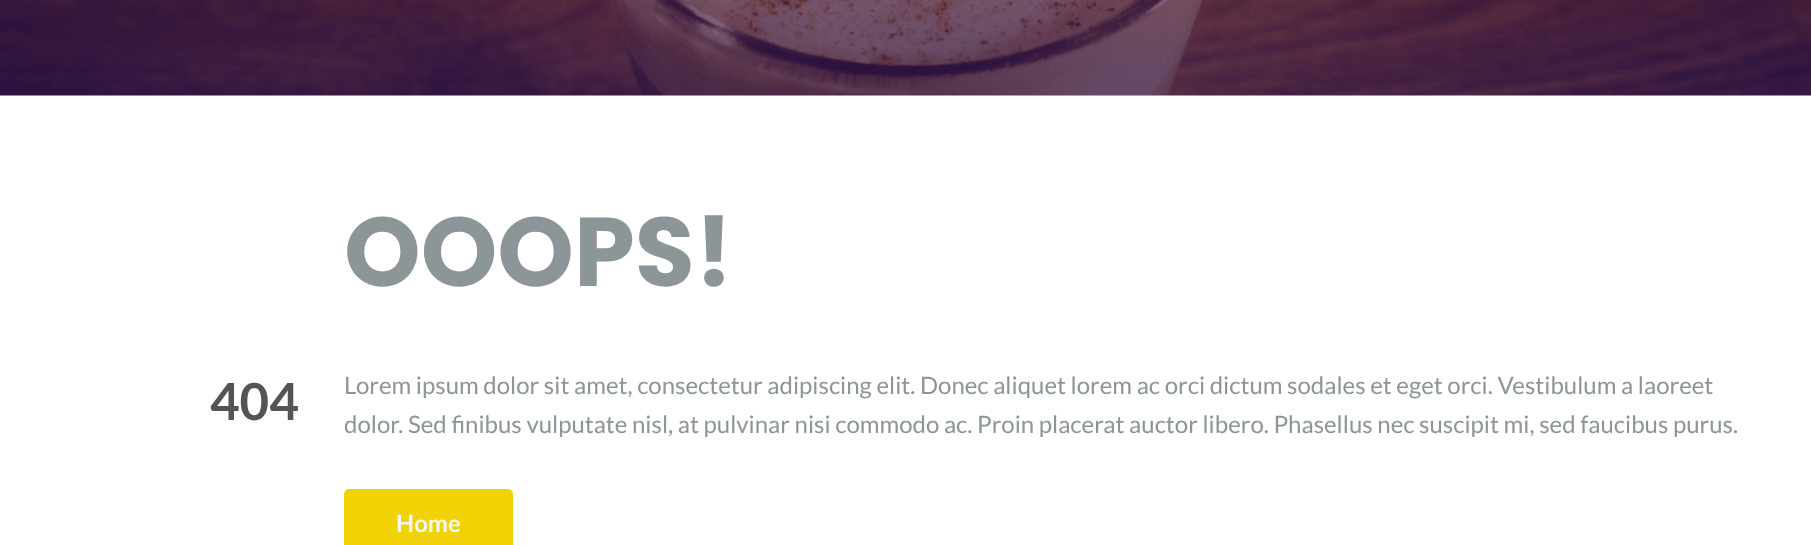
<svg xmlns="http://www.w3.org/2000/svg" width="1811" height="545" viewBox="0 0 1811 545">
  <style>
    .t1 { font: bold 51px Lato; fill: #545454; }
    .t2 { font: bold 97.5px Poppins; fill: #8c9597; }
    .t3 { font: 24px Lato; fill: #8c9597; }
    .t4 { font: bold 24px Lato; fill: #f7f7f7; }
  </style>
  <rect width="100%" height="100%" fill="#fff"/>
  <image x="0" y="0" width="1811" height="96" href="images/1.png"/>
  <text x="210" y="420" class="t1">404</text>
  <text x="344" y="286" class="t2">OOOPS!</text>
  <text x="344" y="394" class="t3">Lorem ipsum dolor sit amet, consectetur adipiscing elit. Donec aliquet lorem ac orci dictum sodales et eget orci. Vestibulum a laoreet</text>
  <text x="344" y="433" class="t3">dolor. Sed finibus vulputate nisl, at pulvinar nisi commodo ac. Proin placerat auctor libero. Phasellus nec suscipit mi, sed faucibus purus.</text>
  <rect x="344" y="489" width="169" height="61" rx="5" fill="#f1d204"/>
  <text x="396" y="532" class="t4">Home</text>
</svg>
